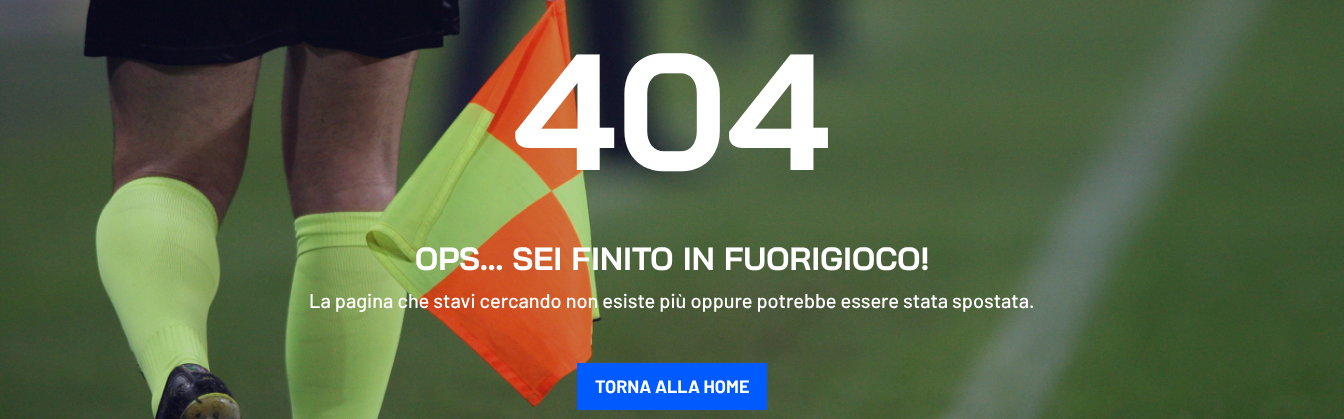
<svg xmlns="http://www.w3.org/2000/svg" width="1344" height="419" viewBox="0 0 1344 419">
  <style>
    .t1 { font: bold 165px Bai Jamjuree; fill: #fff; }
    .t2 { font: bold 32px Bai Jamjuree; fill: #fff; }
    .t3 { font: 500 20px Barlow; fill: #fff; }
    .t4 { font: bold 18px Barlow; fill: #fff; }
  </style>
  <rect width="100%" height="100%" fill="#fff"/>
  <image x="0" y="0" width="1344" height="419" href="images/1.png"/>
  <text x="514" y="170" class="t1">404</text>
  <text x="415" y="270" class="t2">OPS... SEI FINITO IN FUORIGIOCO!</text>
  <text x="309" y="308" class="t3">La pagina che stavi cercando non esiste più oppure potrebbe essere stata spostata.</text>
  <rect x="577" y="363" width="190" height="47" fill="#005bff"/>
  <text x="595" y="393" class="t4">TORNA ALLA HOME</text>
</svg>
